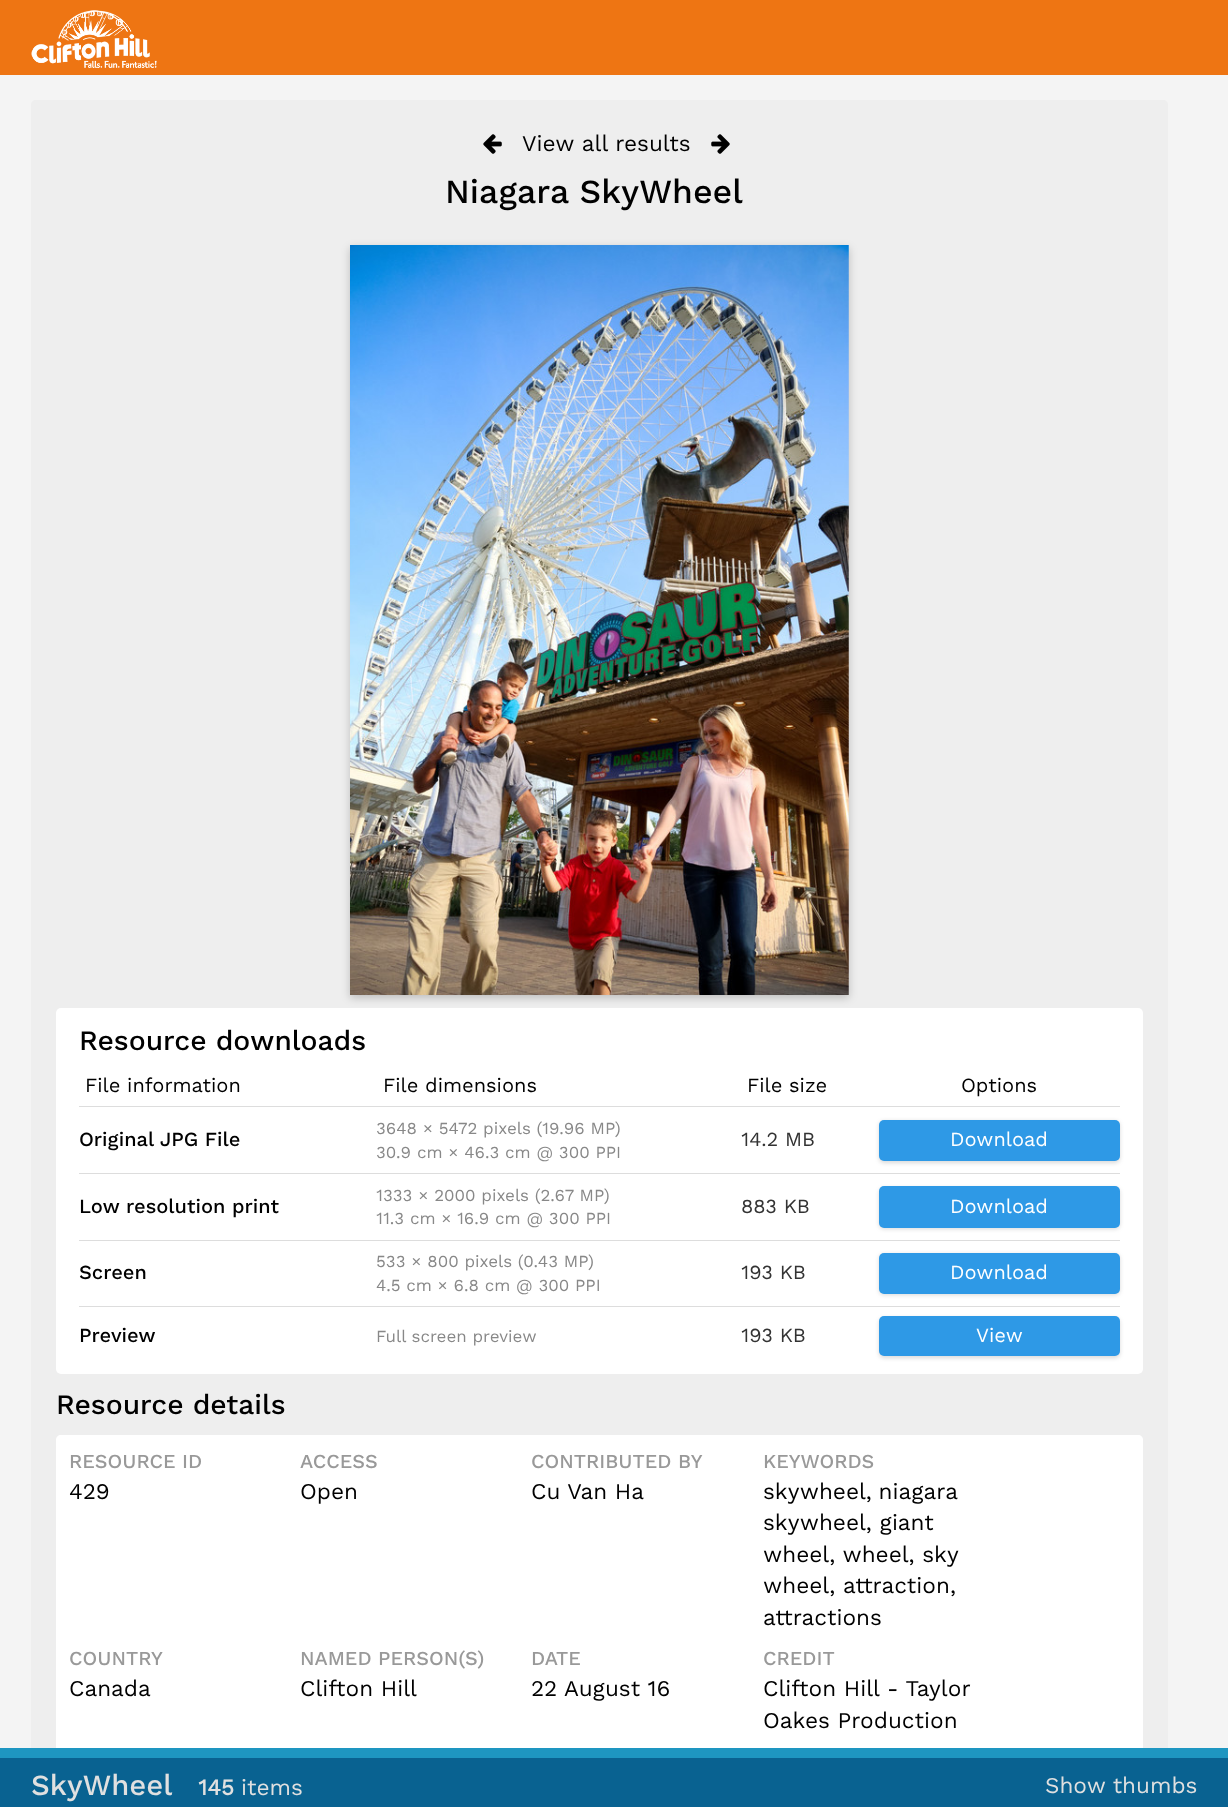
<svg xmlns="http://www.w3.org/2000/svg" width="1228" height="1807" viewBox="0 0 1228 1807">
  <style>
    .t1 { font: 22.5px Work Sans; fill: #000; }
    .t2 { font: 500 33.75px Work Sans; fill: #000; }
    .t3 { font: 500 28.1px Work Sans; fill: #000; }
    .t4 { font: 20px Work Sans; fill: #000; }
    .t5 { font: 500 20px Work Sans; fill: #000; }
    .t6 { font: 16.9px Work Sans; fill: #888; }
    .t7 { font: 20px Work Sans; fill: #333; }
    .t8 { font: 20px Work Sans; fill: #fff; }
    .t9 { font: 500 19.75px Work Sans; fill: #999; }
    .t10 { font: 500 29.25px Work Sans; fill: #e0e0e0; }
    .t11 { font: bold 22.5px Work Sans; fill: #e0e0e0; }
    .t12 { font: 22.5px Work Sans; fill: #e0e0e0; }
  </style>
  <rect width="100%" height="100%" fill="#f4f4f4"/>
  <rect x="0" y="0" width="1228" height="75" fill="#ee7513"/>
  <image x="31" y="10" width="126" height="58" href="images/1.png"/>
  <path d="M36 100H1163C1166 100 1168 102 1168 105V1748H31V105C31 102 33 100 36 100Z" fill="#eee"/>
  <image x="483" y="134" width="19" height="20" href="images/2.png"/>
  <text x="522" y="151" class="t1">View all results</text>
  <image x="711" y="134" width="19" height="20" href="images/3.png"/>
  <text x="445" y="203" class="t2">Niagara SkyWheel</text>
  <rect x="56" y="1008" width="1087" height="366" rx="5" fill="#fff"/>
  <rect x="350" y="248" width="499" height="750" fill="#00000033" filter="blur(4px)"/>
  <image x="350" y="245" width="499" height="750" href="images/4.png"/>
  <text x="79" y="1050" class="t3">Resource downloads</text>
  <text x="85" y="1092" class="t4">File information</text>
  <text x="383" y="1092" class="t4">File dimensions</text>
  <text x="747" y="1092" class="t4">File size</text>
  <text x="961" y="1092" class="t4">Options</text>
  <rect x="79" y="1106" width="1041" height="1" fill="#ddd"/>
  <text x="79" y="1146" class="t5">Original JPG File</text>
  <text x="376" y="1134" class="t6">3648 × 5472 pixels (19.96 MP)</text>
  <text x="376" y="1158" class="t6">30.9 cm × 46.3 cm @ 300 PPI</text>
  <text x="741" y="1146" class="t7">14.2 MB</text>
  <rect x="879" y="1121" width="241" height="42" rx="5" fill="#00000026" filter="blur(2px)"/>
  <rect x="879" y="1120" width="241" height="41" rx="5" fill="#2e99e6"/>
  <text x="950" y="1146" class="t8">Download</text>
  <rect x="79" y="1173" width="1041" height="1" fill="#ddd"/>
  <text x="79" y="1213" class="t5">Low resolution print</text>
  <text x="376" y="1201" class="t6">1333 × 2000 pixels (2.67 MP)</text>
  <text x="376" y="1224" class="t6">11.3 cm × 16.9 cm @ 300 PPI</text>
  <text x="741" y="1213" class="t7">883 KB</text>
  <rect x="879" y="1188" width="241" height="41" rx="5" fill="#00000026" filter="blur(2px)"/>
  <rect x="879" y="1186" width="241" height="42" rx="5" fill="#2e99e6"/>
  <text x="950" y="1213" class="t8">Download</text>
  <rect x="79" y="1240" width="1041" height="1" fill="#ddd"/>
  <text x="79" y="1279" class="t5">Screen</text>
  <text x="376" y="1267" class="t6">533 × 800 pixels (0.43 MP)</text>
  <text x="376" y="1291" class="t6">4.5 cm × 6.8 cm @ 300 PPI</text>
  <text x="741" y="1279" class="t7">193 KB</text>
  <rect x="879" y="1254" width="241" height="41" rx="5" fill="#00000026" filter="blur(2px)"/>
  <rect x="879" y="1253" width="241" height="41" rx="5" fill="#2e99e6"/>
  <text x="950" y="1279" class="t8">Download</text>
  <rect x="79" y="1306" width="1041" height="1" fill="#ddd"/>
  <text x="79" y="1342" class="t5">Preview</text>
  <text x="376" y="1342" class="t6">Full screen preview</text>
  <text x="741" y="1342" class="t7">193 KB</text>
  <rect x="879" y="1318" width="241" height="40" rx="5" fill="#00000026" filter="blur(2px)"/>
  <rect x="879" y="1316" width="241" height="40" rx="5" fill="#2e99e6"/>
  <text x="976" y="1342" class="t8">View</text>
  <text x="56" y="1414" class="t3">Resource details</text>
  <path d="M61 1435H1138C1141 1435 1143 1437 1143 1440V1748H56V1440C56 1437 58 1435 61 1435Z" fill="#fff"/>
  <text x="69" y="1468" class="t9">RESOURCE ID</text>
  <text x="69" y="1499" class="t1">429</text>
  <text x="300" y="1468" class="t9">ACCESS</text>
  <text x="300" y="1499" class="t1">Open</text>
  <text x="531" y="1468" class="t9">CONTRIBUTED BY</text>
  <text x="531" y="1499" class="t1">Cu Van Ha</text>
  <text x="763" y="1468" class="t9">KEYWORDS</text>
  <text x="763" y="1499" word-spacing="-1" class="t1">skywheel, niagara</text>
  <text x="763" y="1530" class="t1">skywheel, giant</text>
  <text x="763" y="1562" class="t1">wheel, wheel, sky</text>
  <text x="763" y="1593" class="t1">wheel, attraction,</text>
  <text x="763" y="1625" class="t1">attractions</text>
  <text x="69" y="1665" class="t9">COUNTRY</text>
  <text x="69" y="1696" class="t1">Canada</text>
  <text x="300" y="1665" class="t9">NAMED PERSON(S)</text>
  <text x="300" y="1696" class="t1">Clifton Hill</text>
  <text x="531" y="1665" class="t9">DATE</text>
  <text x="531" y="1696" class="t1">22 August 16</text>
  <text x="763" y="1665" class="t9">CREDIT</text>
  <text x="763" y="1696" class="t1">Clifton Hill - Taylor</text>
  <text x="763" y="1728" class="t1">Oakes Production</text>
  <rect x="0" y="1748" width="1228" height="10" fill="#1e96c1"/>
  <rect x="0" y="1758" width="1228" height="49" fill="#096291"/>
  <text x="31" y="1795" class="t10">SkyWheel</text>
  <text x="198" y="1795" class="t11">145</text>
  <text x="241" y="1795" class="t12">items</text>
  <text x="1045" y="1793" class="t12">Show thumbs</text>
</svg>
